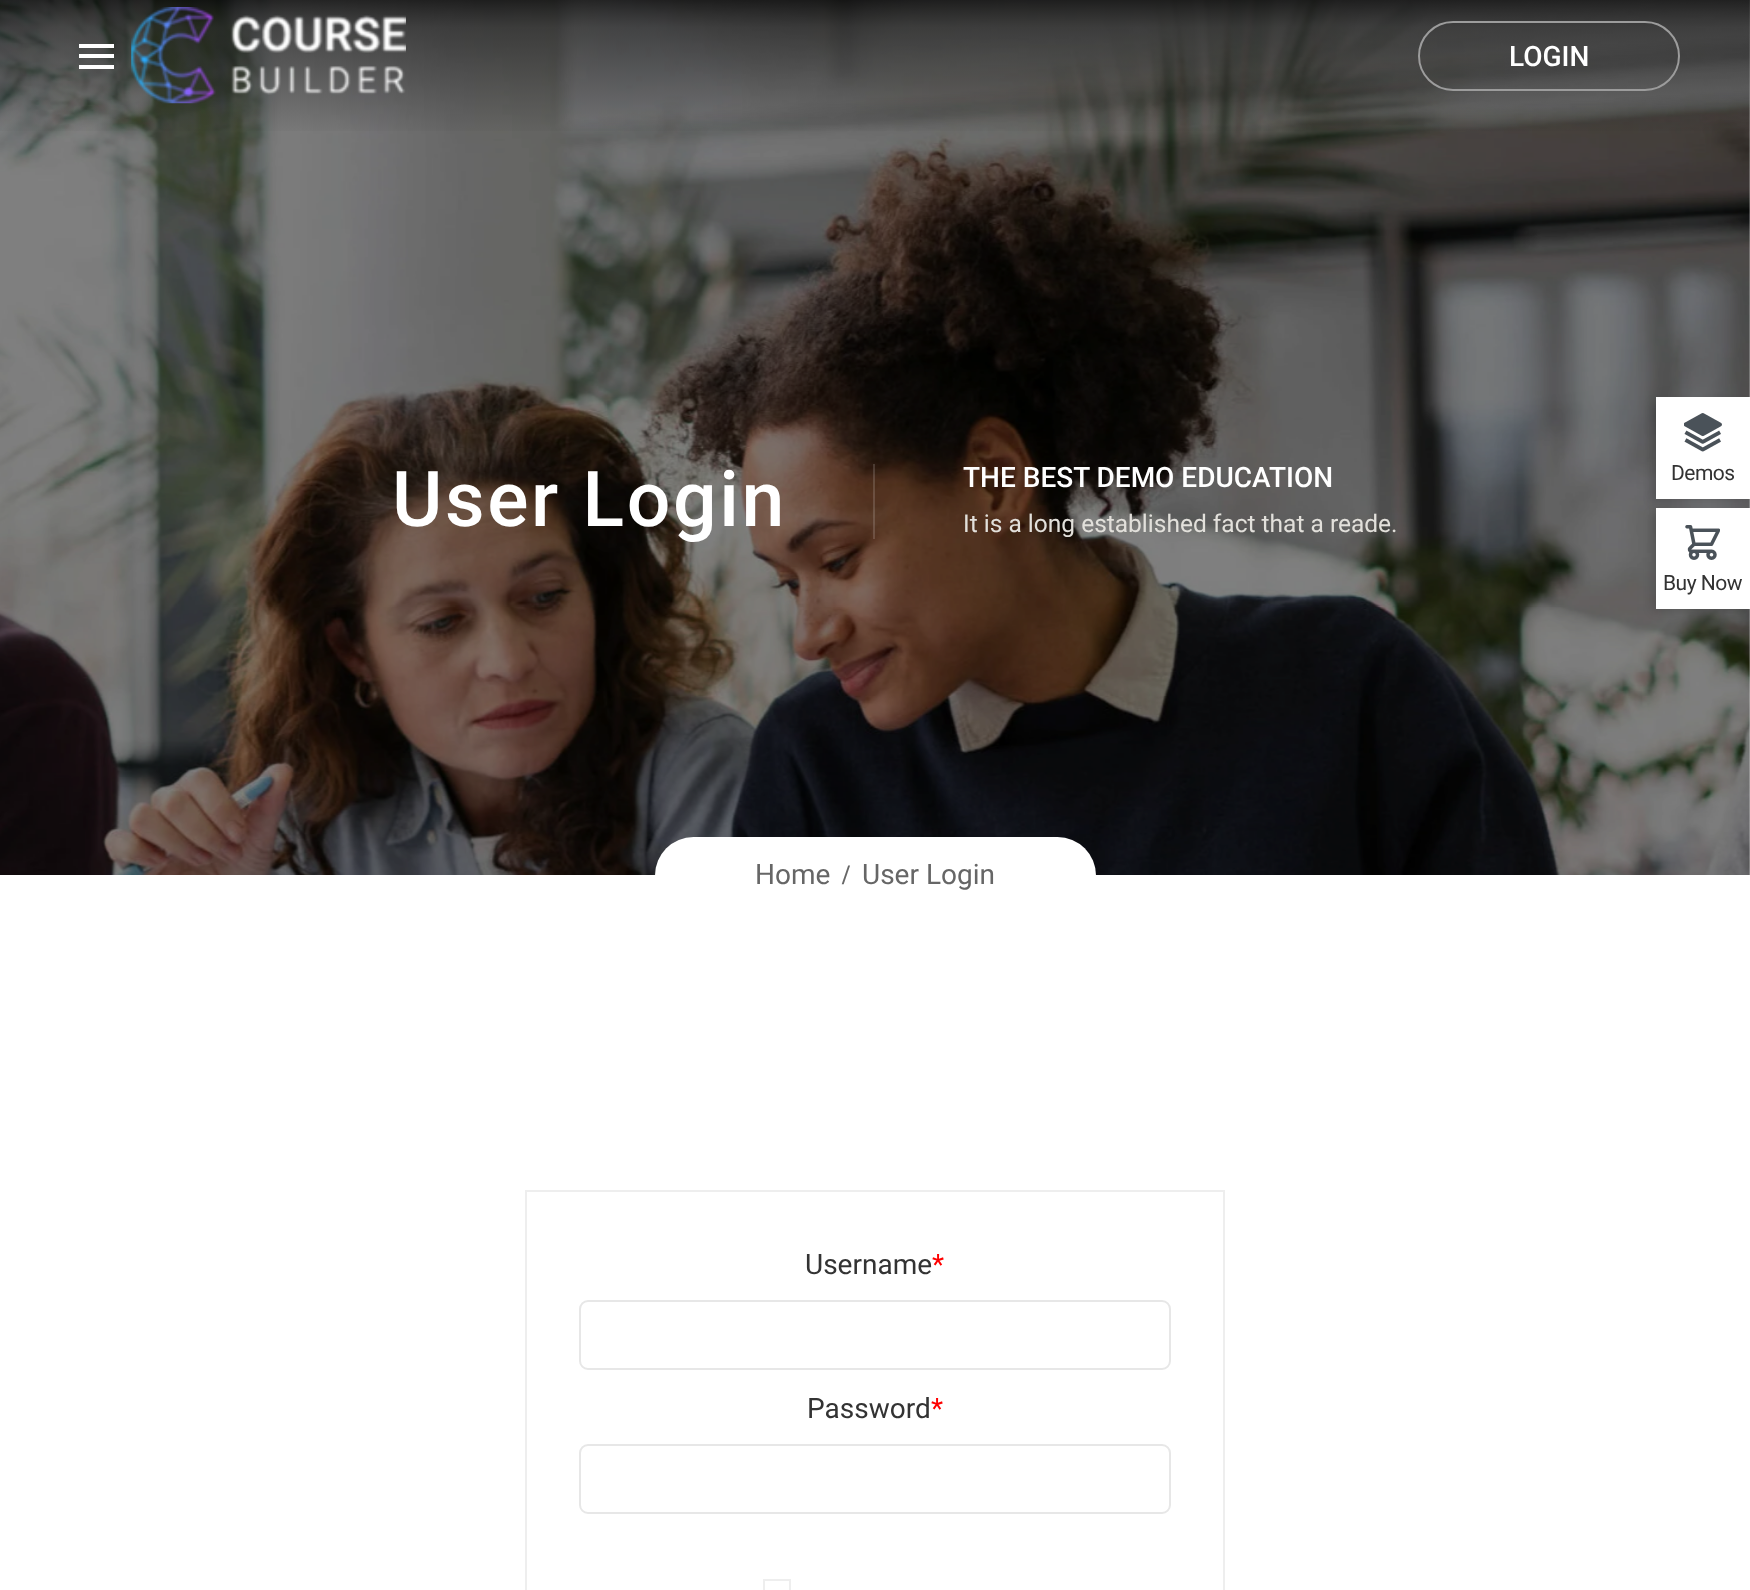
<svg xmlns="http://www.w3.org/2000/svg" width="1750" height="1590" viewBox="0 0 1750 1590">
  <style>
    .t1 { font: 500 28px Roboto; fill: #fff; }
    .t2 { font: 500 77px Roboto; letter-spacing: 2.6px; fill: #fff; }
    .t3 { font: 24.5px Roboto; fill: #e2e0db; }
    .t4 { font: 28px Roboto; fill: #666; }
    .t5 { font: bold 28px Liberation Serif; fill: #666; }
    .t6 { font: 28px Roboto; fill: #333; }
    .t7 { font: 28px Roboto; fill: #f00; }
    .t8 { font: 21px Roboto; letter-spacing: -0.5px; fill: #333; }
  </style>
  <defs>
    <linearGradient id="g1" gradientUnits="userSpaceOnUse" x1="875" y1="0" x2="875" y2="137"><stop offset="0" stop-color="#000" stop-opacity="0.7"/><stop offset="0.2" stop-color="#1c1c1c" stop-opacity="0.56"/><stop offset="1" stop-color="#1c1c1c" stop-opacity="0"/></linearGradient>
  </defs>
  <rect width="100%" height="100%" fill="#fff"/>
  <image x="0" y="0" width="1750" height="875" href="images/2.png"/>
  <rect x="0" y="0" width="1750" height="131" fill="url(#g1)"/>
  <rect x="79" y="44" width="35" height="4" fill="#fff"/>
  <rect x="79" y="54" width="35" height="4" fill="#fff"/>
  <rect x="79" y="65" width="35" height="4" fill="#fff"/>
  <image x="131" y="7" width="275" height="97" href="images/1.png"/>
  <rect x="1419" y="22" width="260" height="68" rx="34" fill="none" stroke="#9c9c9c" stroke-width="2"/>
  <text x="1509" y="66" class="t1">LOGIN</text>
  <text x="392" y="526" class="t2">User Login</text>
  <rect x="873" y="464" width="2" height="75" fill="#ffffff26"/>
  <text x="963" y="487" class="t1">THE BEST DEMO EDUCATION</text>
  <text x="963" y="532" class="t3">It is a long established fact that a reade.</text>
  <rect x="655" y="837" width="441" height="77" rx="38.5" fill="#fff"/>
  <text x="755" y="884" class="t4">Home</text>
  <text x="842" y="884" class="t5">/</text>
  <text x="862" y="884" class="t4">User Login</text>
  <rect x="526" y="1191" width="698" height="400" fill="none" stroke="#eee" stroke-width="2"/>
  <text x="805" y="1274" class="t6">Username</text>
  <text x="932" y="1274" class="t7">*</text>
  <rect x="580" y="1301" width="590" height="68" rx="8" fill="none" stroke="#e7e7e7" stroke-width="2"/>
  <text x="807" y="1418" class="t6">Password</text>
  <text x="931" y="1418" class="t7">*</text>
  <rect x="580" y="1445" width="590" height="68" rx="8" fill="none" stroke="#e7e7e7" stroke-width="2"/>
  <rect x="764" y="1580" width="26" height="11" fill="none" stroke="#eee" stroke-width="2"/>
  <rect x="1652" y="403" width="91" height="98" fill="#00000024" filter="blur(5px)"/>
  <rect x="1656" y="397" width="94" height="102" fill="#fff"/>
  <image x="1684" y="413" width="38" height="39" href="images/3.png"/>
  <text x="1671" y="480" class="t8">Demos</text>
  <rect x="1652" y="513" width="91" height="98" fill="#00000024" filter="blur(5px)"/>
  <rect x="1656" y="508" width="94" height="101" fill="#fff"/>
  <image x="1685" y="525" width="35" height="35" href="images/4.png"/>
  <text x="1663" y="590" class="t8">Buy Now</text>
</svg>
